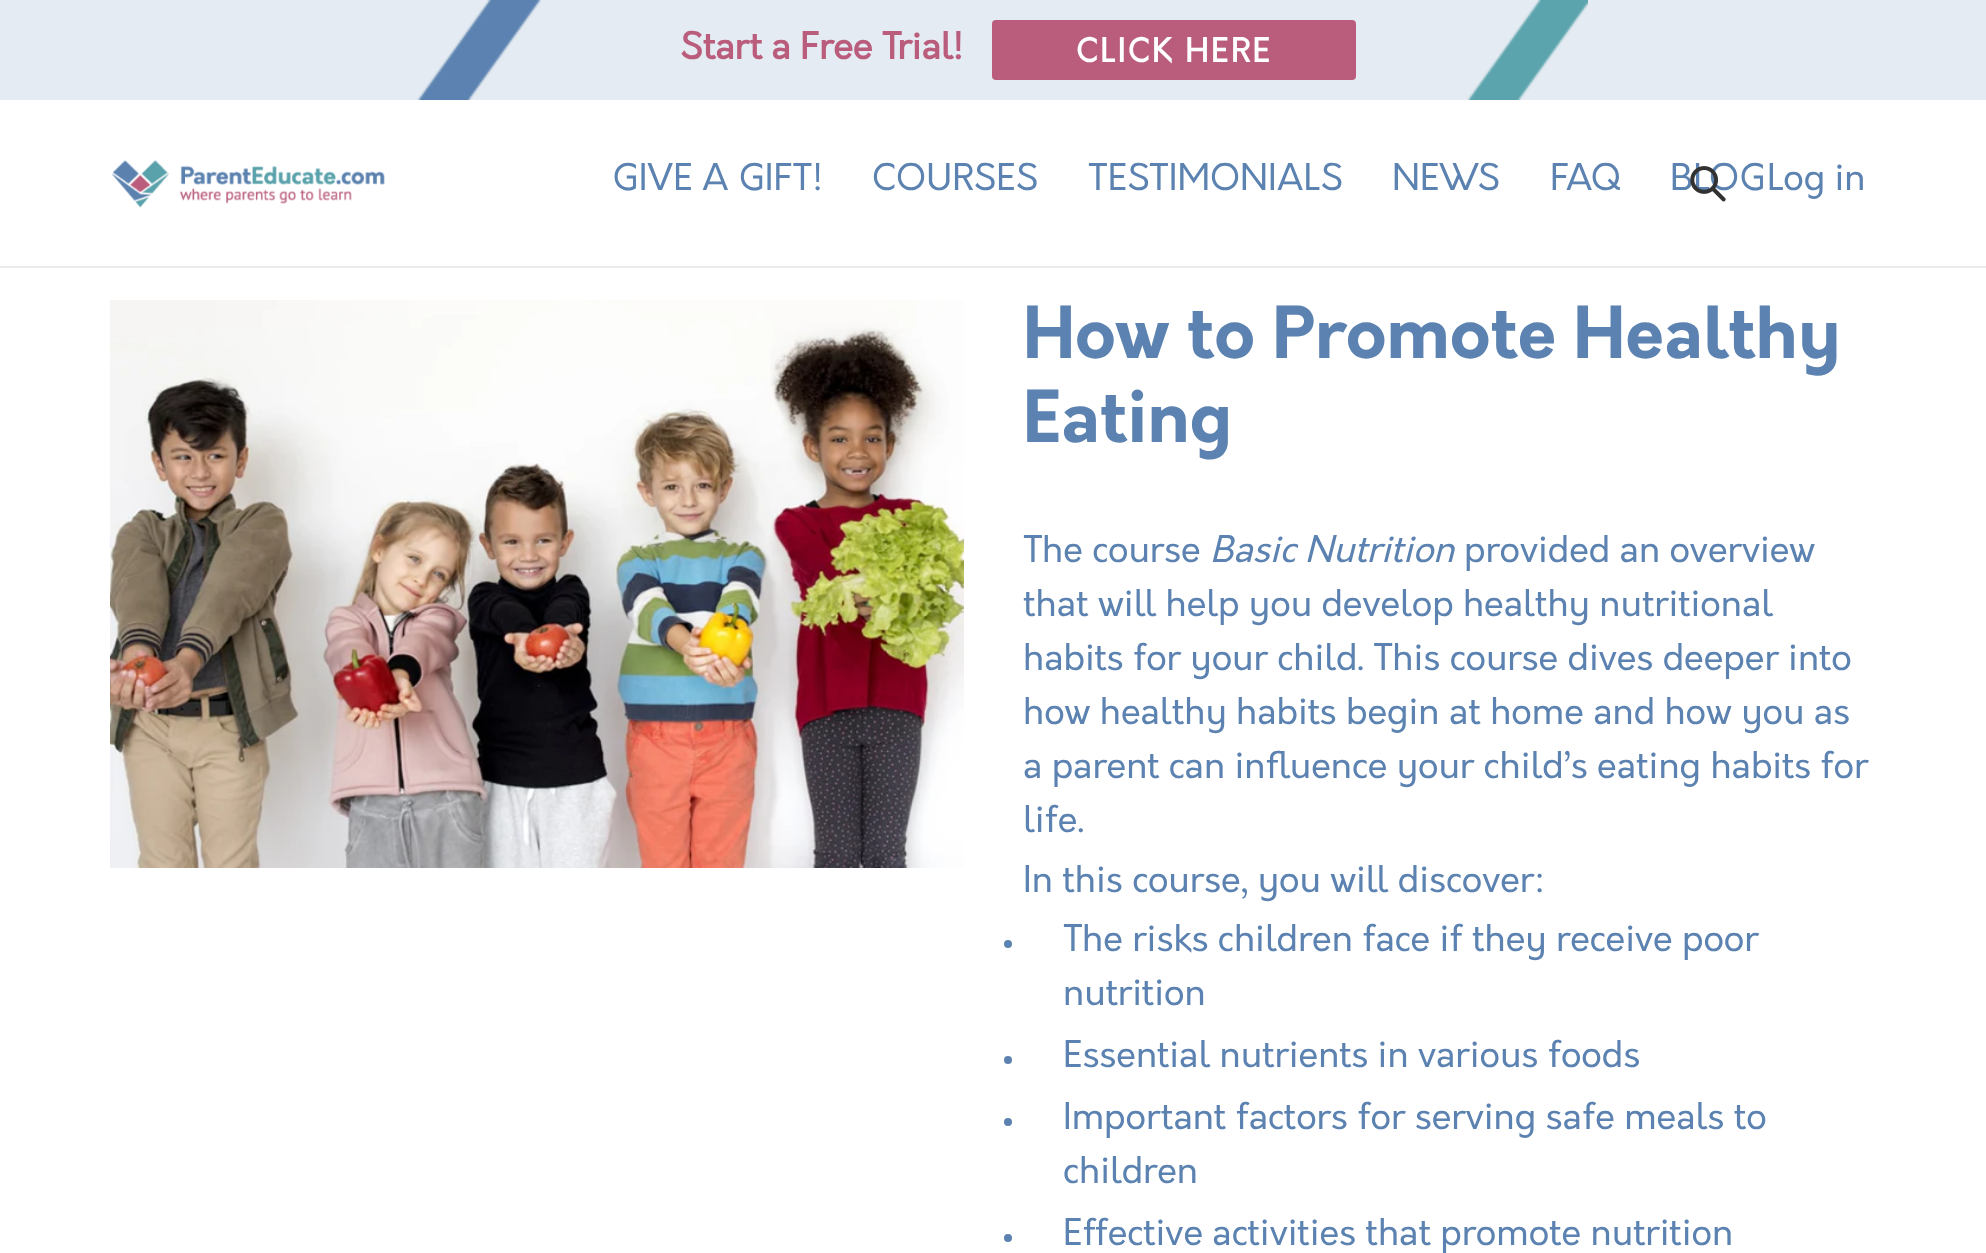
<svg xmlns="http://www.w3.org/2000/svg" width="1986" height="1253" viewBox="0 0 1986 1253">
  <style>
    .t1 { font: bold 36px 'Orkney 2'; fill: #ba5d7c; }
    .t2 { font: bold 32px 'Orkney 2'; letter-spacing: 2.5px; fill: #fff; }
    .t3 { font: 36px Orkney; fill: #5b82b0; }
    .t4 { font: bold 70px Orkney; fill: #5b82b0; }
    .t5 { font: italic 36px Orkney; fill: #5b82b0; }
  </style>
  <rect width="100%" height="100%" fill="#fff"/>
  <rect x="0" y="266" width="1986" height="2" fill="#ebebeb"/>
  <rect x="0" y="0" width="1986" height="100" fill="#e4ebf2"/>
  <image x="417" y="0" width="1171" height="100" href="images/1.png"/>
  <text x="680" y="59" class="t1">Start a Free Trial!</text>
  <rect x="992" y="20" width="364" height="60" rx="4" fill="#ba5d7c"/>
  <text x="1076" y="62" class="t2">CLICK HERE</text>
  <image x="111" y="160" width="274" height="48" href="images/2.png"/>
  <text x="612" y="190" class="t3">GIVE A GIFT!</text>
  <text x="872" y="190" class="t3">COURSES</text>
  <text x="1088" y="190" class="t3">TESTIMONIALS</text>
  <text x="1392" y="190" class="t3">NEWS</text>
  <text x="1550" y="190" class="t3">FAQ</text>
  <text x="1670" y="190" class="t3">BLOG</text>
  <image x="1690" y="166" width="36" height="36" href="images/3.png"/>
  <text x="1767" y="190" class="t3">Log in</text>
  <image x="110" y="300" width="854" height="568" href="images/4.png"/>
  <text x="1023" y="358" class="t4">How to Promote Healthy</text>
  <text x="1023" y="442" class="t4">Eating</text>
  <text x="1023" y="562" class="t3">The course</text>
  <text x="1210" y="562" class="t5">Basic Nutrition</text>
  <text x="1464" y="562" class="t3">provided an overview</text>
  <text x="1023" y="616" class="t3">that will help you develop healthy nutritional</text>
  <text x="1023" y="670" class="t3">habits for your child. This course dives deeper into</text>
  <text x="1023" y="724" class="t3">how healthy habits begin at home and how you as</text>
  <text x="1023" y="778" class="t3">a parent can influence your child’s eating habits for</text>
  <text x="1023" y="832" class="t3">life.</text>
  <text x="1023" y="892" class="t3">In this course, you will discover:</text>
  <circle cx="1008" cy="944" r="4" fill="#5b82b0"/>
  <text x="1063" y="951" class="t3">The risks children face if they receive poor</text>
  <text x="1063" y="1005" class="t3">nutrition</text>
  <circle cx="1008" cy="1060" r="4" fill="#5b82b0"/>
  <text x="1063" y="1067" class="t3">Essential nutrients in various foods</text>
  <circle cx="1008" cy="1122" r="4" fill="#5b82b0"/>
  <text x="1063" y="1129" class="t3">Important factors for serving safe meals to</text>
  <text x="1063" y="1183" class="t3">children</text>
  <circle cx="1008" cy="1238" r="4" fill="#5b82b0"/>
  <text x="1063" y="1245" class="t3">Effective activities that promote nutrition</text>
</svg>
